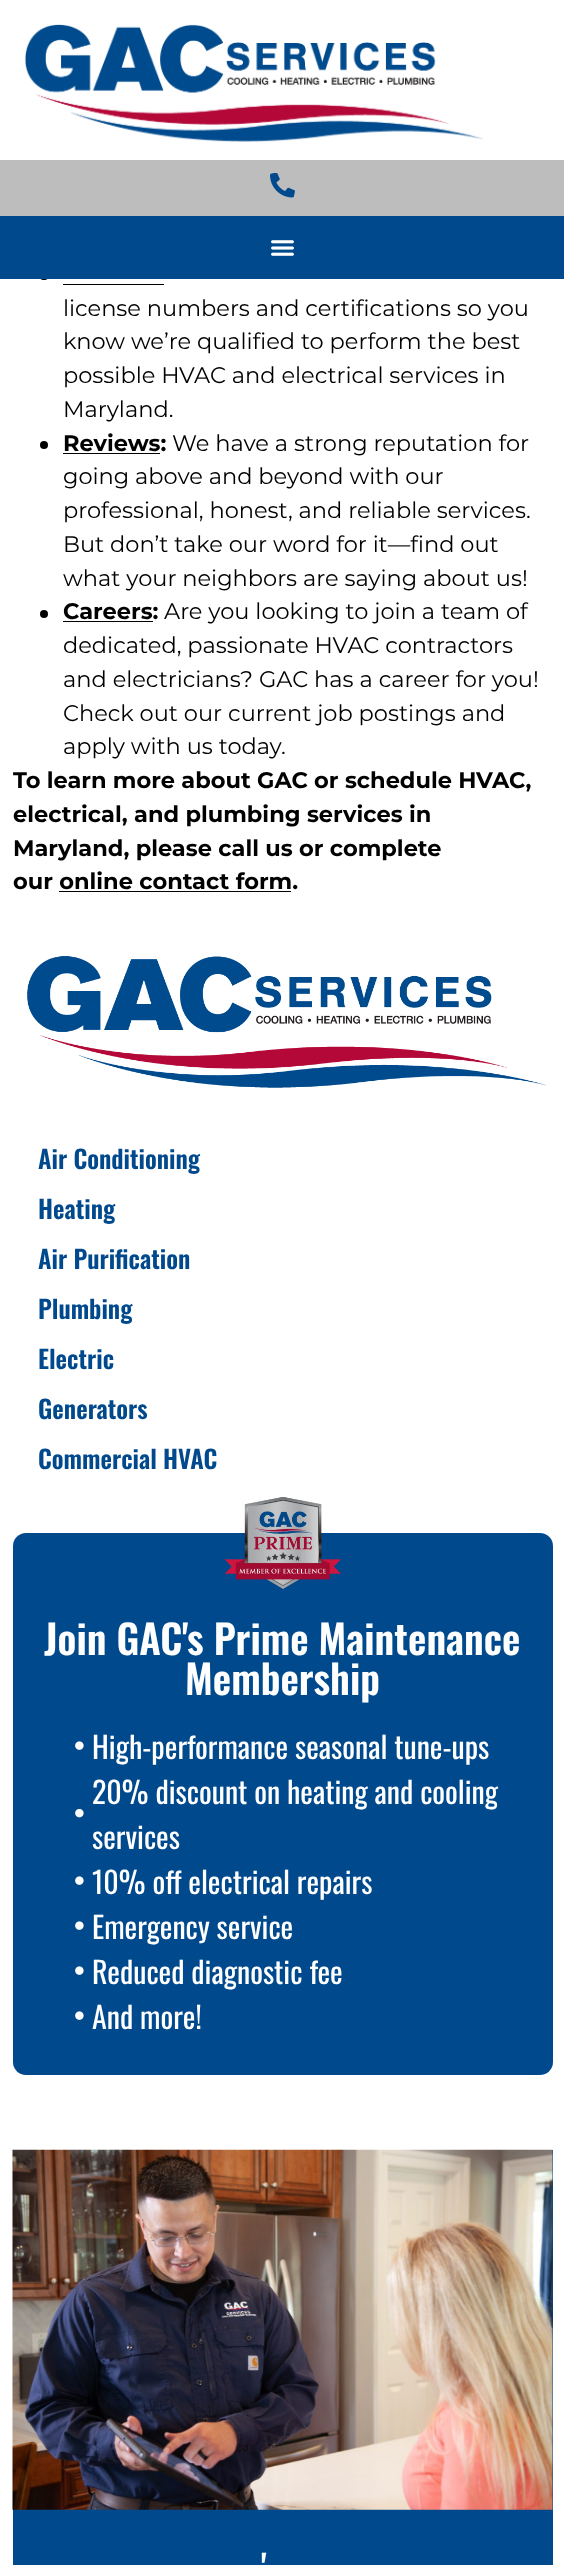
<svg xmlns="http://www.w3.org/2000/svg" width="564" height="2565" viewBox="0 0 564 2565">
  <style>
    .t1 { font: 22.5px Montserrat; fill: #000; }
    .t2 { font: bold 22.5px Montserrat; fill: #000; }
    .t3 { font: 600 25px Oswald; fill: #00498d; }
    .t4 { font: 600 40px Oswald; fill: #fff; }
    .t5 { font: 30px Oswald; fill: #fff; }
    .t6 { font: 600 35px Oswald; fill: #fff; }
  </style>
  <rect width="100%" height="100%" fill="#fff"/>
  <image x="24" y="24" width="459" height="118" href="images/1.png"/>
  <rect x="0" y="160" width="564" height="56" fill="#bdbdbd"/>
  <image x="270" y="173" width="25" height="25" href="images/2.png"/>
  <rect x="40" y="273" width="8" height="7" rx="3.5" fill="#000"/>
  <rect x="0" y="216" width="564" height="63" fill="#00498d"/>
  <image x="271" y="240" width="23" height="16" href="images/3.png"/>
  <rect x="63" y="284" width="101" height="1" fill="#000"/>
  <text x="63" y="316" class="t1">license numbers and certifications so you</text>
  <text x="63" y="349" class="t1">know we’re qualified to perform the best</text>
  <text x="63" y="383" class="t1">possible HVAC and electrical services in</text>
  <text x="63" y="417" class="t1">Maryland.</text>
  <circle cx="44" cy="445" r="4" fill="#000"/>
  <text x="63" y="451" class="t2">Reviews:</text>
  <rect x="63" y="453" width="97" height="1" fill="#000"/>
  <text x="172" y="451" class="t1">We have a strong reputation for</text>
  <text x="63" y="484" class="t1">going above and beyond with our</text>
  <text x="63" y="518" class="t1">professional, honest, and reliable services.</text>
  <text x="63" y="552" class="t1">But don’t take our word for it—find out</text>
  <text x="63" y="586" class="t1">what your neighbors are saying about us!</text>
  <circle cx="44" cy="614" r="4" fill="#000"/>
  <text x="63" y="619" class="t2">Careers:</text>
  <rect x="63" y="621" width="90" height="1" fill="#000"/>
  <text x="164" y="619" class="t1">Are you looking to join a team of</text>
  <text x="63" y="653" class="t1">dedicated, passionate HVAC contractors</text>
  <text x="63" y="687" class="t1">and electricians? GAC has a career for you!</text>
  <text x="63" y="721" class="t1">Check out our current job postings and</text>
  <text x="63" y="754" class="t1">apply with us today.</text>
  <text x="13" y="788" class="t2">To learn more about GAC or schedule HVAC,</text>
  <text x="13" y="822" class="t2">electrical, and plumbing services in</text>
  <text x="13" y="856" class="t2">Maryland, please call us or complete</text>
  <text x="13" y="889" class="t2">our online contact form.</text>
  <rect x="59" y="891" width="232" height="1" fill="#000"/>
  <image x="27" y="956" width="519" height="132" href="images/4.png"/>
  <text x="38" y="1169" class="t3">Air Conditioning</text>
  <text x="38" y="1219" class="t3">Heating</text>
  <text x="38" y="1269" class="t3">Air Purification</text>
  <text x="38" y="1319" class="t3">Plumbing</text>
  <text x="38" y="1369" class="t3">Electric</text>
  <text x="38" y="1419" class="t3">Generators</text>
  <text x="38" y="1469" class="t3">Commercial HVAC</text>
  <rect x="13" y="1533" width="540" height="542" rx="13" fill="#00498d"/>
  <image x="224" y="1497" width="117" height="92" href="images/5.png"/>
  <text x="44" y="1655" class="t4">Join GAC's Prime Maintenance</text>
  <text x="185" y="1695" class="t4">Membership</text>
  <image x="75" y="1741" width="9" height="9" href="images/6.png"/>
  <text x="92" y="1759" class="t5">High-performance seasonal tune-ups</text>
  <image x="75" y="1809" width="9" height="9" href="images/7.png"/>
  <text x="92" y="1804" class="t5">20% discount on heating and cooling</text>
  <text x="92" y="1849" class="t5">services</text>
  <image x="75" y="1876" width="9" height="9" href="images/6.png"/>
  <text x="92" y="1894" class="t5">10% off electrical repairs</text>
  <image x="75" y="1921" width="9" height="9" href="images/6.png"/>
  <text x="92" y="1939" class="t5">Emergency service</text>
  <image x="75" y="1966" width="9" height="9" href="images/6.png"/>
  <text x="92" y="1984" class="t5">Reduced diagnostic fee</text>
  <image x="75" y="2011" width="9" height="9" href="images/6.png"/>
  <text x="92" y="2029" class="t5">And more!</text>
  <rect x="13" y="2150" width="540" height="415" fill="#00498d"/>
  <image x="12" y="2149" width="541" height="361" href="images/8.png"/>
  <text x="261" y="2581" class="t6">'</text>
</svg>
